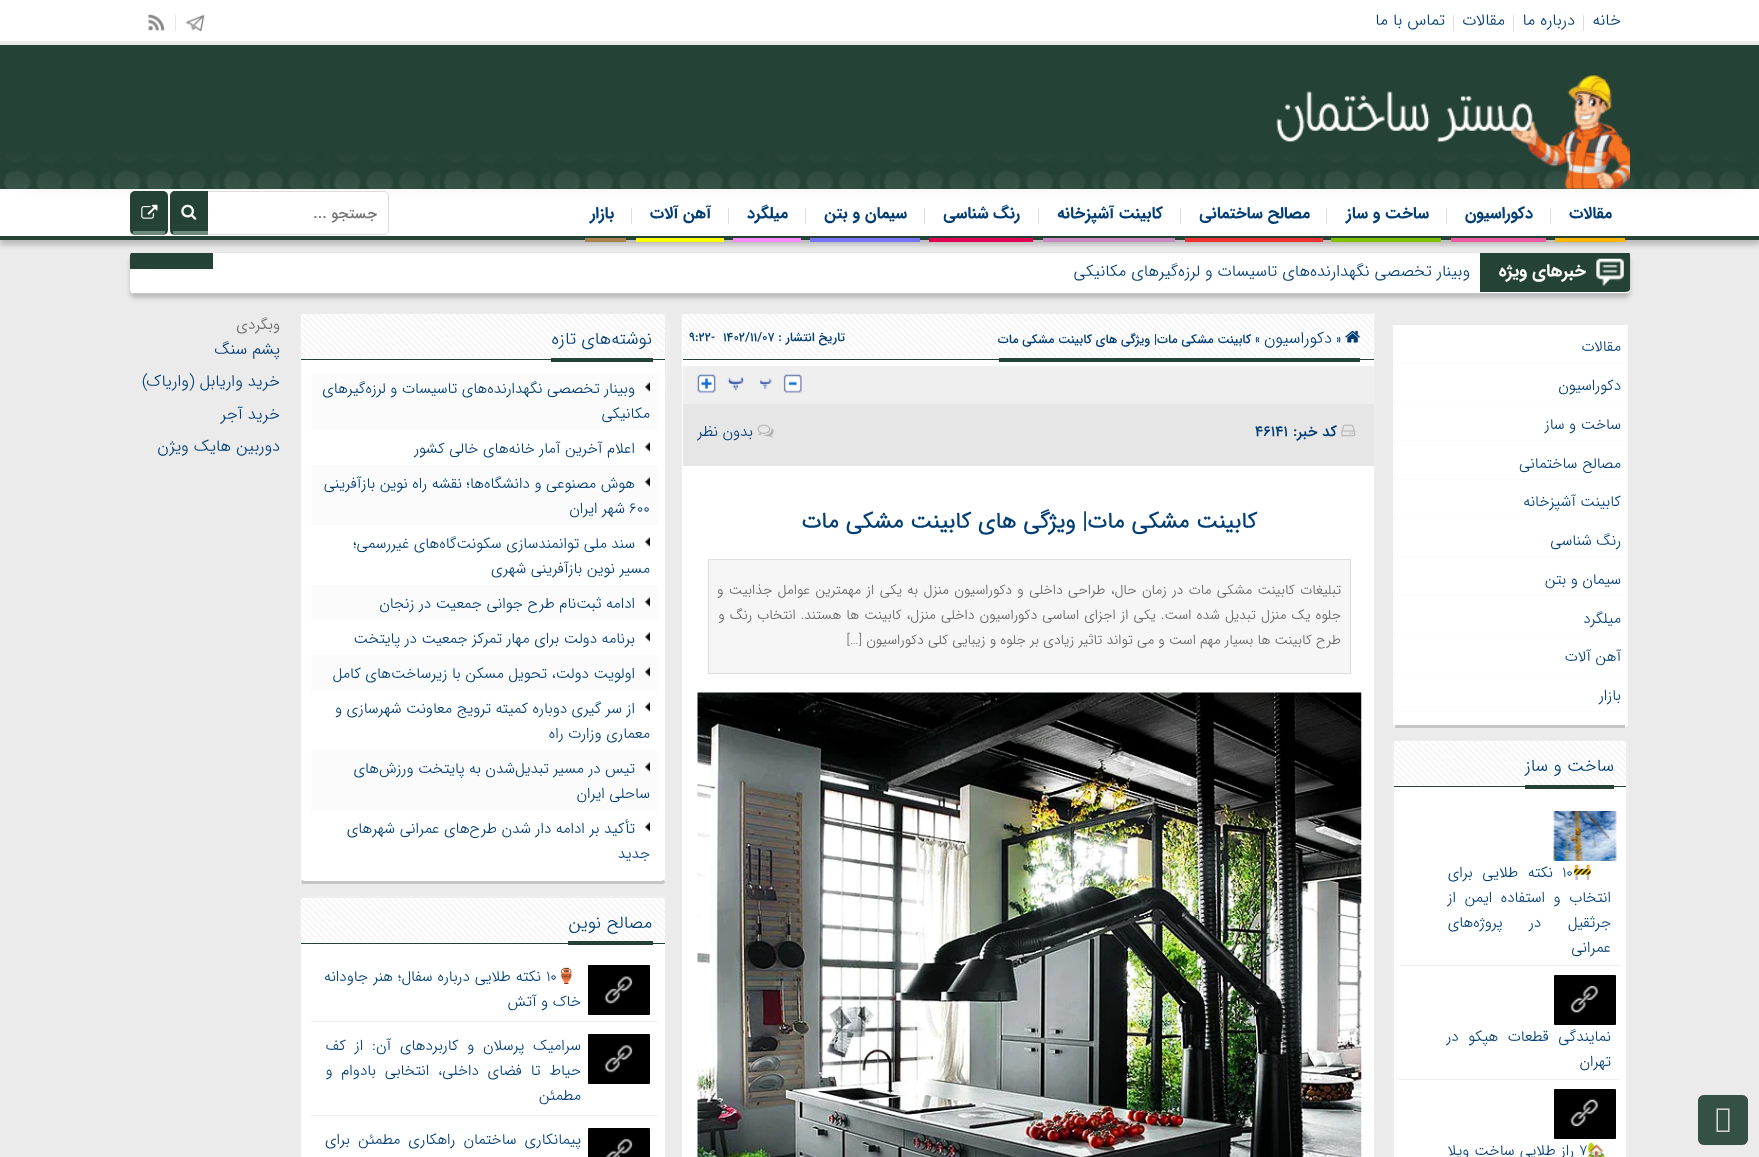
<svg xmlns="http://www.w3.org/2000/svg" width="1759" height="1157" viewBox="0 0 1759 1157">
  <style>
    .t1 { font: 300 16.25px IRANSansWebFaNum; direction: rtl; fill: #023e74; }
    .t2 { font: bold 16.25px 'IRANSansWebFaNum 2'; direction: rtl; fill: #023e74; }
    .t3 { font: 500 15px IRANSansWebFaNum; direction: rtl; fill: #757575; }
    .t4 { font: bold 17.5px 'IRANSansWebFaNum 2'; direction: rtl; fill: #fff; }
    .t5 { font: 300 15px IRANSansWebFaNum; direction: rtl; fill: #023e74; }
    .t6 { font: 300 17.5px IRANSansWebFaNum; direction: rtl; fill: #023e74; }
    .t7 { font: 15px Noto Color Emoji; fill: #023e74; }
    .t8 { font: 300 15px IRANSansWebFaNum; fill: #023e74; }
    .t9 { font: 500 12.5px IRANSansWebFaNum; fill: #023e74; }
    .t10 { font: 500 12.5px IRANSansWebFaNum; direction: rtl; fill: #023e74; }
    .t11 { font: 500 15px IRANSansWebFaNum; direction: rtl; fill: #023e74; }
    .t12 { font: 500 15px IRANSansWebFaNum; fill: #023e74; }
    .t13 { font: bold 22.5px IRANSansWebFaNum; direction: rtl; fill: #023e74; }
    .t14 { font: 300 13.75px IRANSansWebFaNum; direction: rtl; fill: #666; }
    .t15 { font: 300 15px IRANSansWebFaNum; direction: rtl; fill: #666; }
  </style>
  <defs>
    <clipPath id="clip1"><rect x="670" y="313" width="705" height="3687"/></clipPath>
    <clipPath id="clip2"><rect x="295" y="313" width="375" height="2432"/></clipPath>
  </defs>
  <rect width="100%" height="100%" fill="#ebebeb"/>
  <rect x="0" y="0" width="1759" height="41" fill="#fff"/>
  <text x="1621" y="25" class="t1">خانه</text>
  <rect x="1583" y="15" width="1" height="16" fill="#ddd"/>
  <text x="1575" y="25" class="t1">درباره ما</text>
  <rect x="1513" y="15" width="1" height="16" fill="#ddd"/>
  <text x="1505" y="25" class="t1">مقالات</text>
  <rect x="1453" y="15" width="1" height="16" fill="#ddd"/>
  <text x="1445" y="25" class="t1">تماس با ما</text>
  <image x="185" y="14" width="20" height="18" href="images/1.png"/>
  <rect x="175" y="15" width="1" height="16" fill="#e6e6e6"/>
  <image x="147" y="14" width="18" height="17" href="images/2.png"/>
  <rect x="0" y="194" width="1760" height="51" fill="#00000033" filter="blur(2.5px)"/>
  <rect x="0" y="189" width="1759" height="47" fill="#fff"/>
  <rect x="130" y="191" width="38" height="44" rx="5" fill="#244235"/>
  <image x="141" y="204" width="17" height="15" href="images/6.png"/>
  <rect x="25" y="83" width="1710" height="93" fill="#0000004d" filter="blur(10.5px)"/>
  <rect x="0" y="45" width="1759" height="144" fill="#244235"/>
  <image x="3" y="153" width="1756" height="36" href="images/3.png"/>
  <image x="1276" y="75" width="354" height="114" href="images/4.png"/>
  <rect x="0" y="236" width="1759" height="4" fill="#244235"/>
  <rect x="1555" y="238" width="70" height="4" fill="#ffb500"/>
  <text x="1612" y="218" class="t2">مقالات</text>
  <rect x="1550" y="208" width="1" height="16" fill="#ddd"/>
  <rect x="1451" y="238" width="95" height="4" fill="#ed5ca3"/>
  <text x="1533" y="218" class="t2">دکوراسیون</text>
  <rect x="1446" y="208" width="1" height="16" fill="#ddd"/>
  <rect x="1331" y="238" width="110" height="4" fill="#83c000"/>
  <text x="1429" y="218" class="t2">ساخت و ساز</text>
  <rect x="1326" y="208" width="1" height="16" fill="#ddd"/>
  <rect x="1185" y="238" width="138" height="4" fill="#ef3131"/>
  <text x="1310" y="218" class="t2">مصالح ساختمانی</text>
  <rect x="1180" y="208" width="1" height="16" fill="#ddd"/>
  <rect x="1043" y="238" width="132" height="4" fill="#c889c0"/>
  <text x="1163" y="218" class="t2">کابینت آشپزخانه</text>
  <rect x="1038" y="208" width="1" height="16" fill="#ddd"/>
  <rect x="929" y="238" width="104" height="4" fill="#e10052"/>
  <text x="1020" y="218" class="t2">رنگ شناسی</text>
  <rect x="924" y="208" width="1" height="16" fill="#ddd"/>
  <rect x="810" y="238" width="110" height="4" fill="#7773ff"/>
  <text x="907" y="218" class="t2">سیمان و بتن</text>
  <rect x="805" y="208" width="1" height="16" fill="#ddd"/>
  <rect x="733" y="238" width="68" height="4" fill="#ff89ff"/>
  <text x="788" y="218" class="t2">میلگرد</text>
  <rect x="728" y="208" width="1" height="16" fill="#ddd"/>
  <rect x="636" y="238" width="88" height="4" fill="#ff0"/>
  <text x="711" y="218" class="t2">آهن آلات</text>
  <rect x="631" y="208" width="1" height="16" fill="#ddd"/>
  <rect x="585" y="238" width="41" height="4" fill="#a9834f"/>
  <text x="614" y="218" class="t2">بازار</text>
  <path d="M206.5 191.5H384C386.5 191.5 388.5 193.5 388.5 196V230C388.5 232.5 386.5 234.5 384 234.5H206.5Z" fill="#fff" stroke="#ddd"/>
  <text x="377" y="218" class="t3">جستجو ...</text>
  <path d="M175 191H208V235H175C172 235 170 233 170 230V196C170 193 172 191 175 191Z" fill="#244235"/>
  <rect x="173" y="231" width="35" height="4" fill="#6b8a7a"/>
  <image x="181" y="204" width="16" height="16" href="images/5.png"/>
  <rect x="133" y="231" width="32" height="4" fill="#6b8a7a"/>
  <rect x="130" y="256" width="1500" height="42" rx="5" fill="#00000033" filter="blur(2px)"/>
  <path d="M132.5 253H1627.5C1629 253 1630 254 1630 255.5V289C1630 292 1628 294 1625 294H135C132 294 130 292 130 289V255.5C130 254 131 253 132.5 253Z" fill="#fff"/>
  <rect x="133" y="293" width="1495" height="1" fill="#c5c5c5"/>
  <path d="M1480 253V292H1625C1628 292 1630 291 1630 289V255C1630 254 1630 253 1629 253Z" fill="#244235"/>
  <image x="1596" y="258" width="28" height="29" href="images/7.png"/>
  <text x="1586" y="276" class="t4">خبرهای ویژه</text>
  <text x="1470" y="276" class="t1">وبینار تخصصی نگهدارنده‌های تاسیسات و لرزه‌گیر‌های مکانیکی</text>
  <path d="M130 255V269H213V253H131Z" fill="#244235"/>
  <rect x="1393" y="325" width="235" height="38" fill="#fff"/>
  <rect x="1393" y="363" width="235" height="1" fill="#fbfbfb"/>
  <text x="1621" y="351" class="t5">مقالات</text>
  <rect x="1393" y="364" width="235" height="76" fill="#fff"/>
  <rect x="1393" y="401" width="235" height="1" fill="#fbfbfb"/>
  <text x="1621" y="390" class="t5">دکوراسیون</text>
  <rect x="1393" y="440" width="235" height="1" fill="#fbfbfb"/>
  <text x="1621" y="429" class="t5">ساخت و ساز</text>
  <rect x="1393" y="441" width="235" height="38" fill="#fff"/>
  <rect x="1393" y="479" width="235" height="1" fill="#fbfbfb"/>
  <text x="1621" y="468" class="t5">مصالح ساختمانی</text>
  <rect x="1393" y="480" width="235" height="38" fill="#fff"/>
  <rect x="1393" y="518" width="235" height="1" fill="#fbfbfb"/>
  <text x="1621" y="506" class="t5">کابینت آشپزخانه</text>
  <rect x="1393" y="519" width="235" height="76" fill="#fff"/>
  <rect x="1393" y="556" width="235" height="1" fill="#fbfbfb"/>
  <text x="1621" y="545" class="t5">رنگ شناسی</text>
  <rect x="1393" y="595" width="235" height="1" fill="#fbfbfb"/>
  <text x="1621" y="584" class="t5">سیمان و بتن</text>
  <rect x="1393" y="596" width="235" height="38" fill="#fff"/>
  <rect x="1393" y="634" width="235" height="1" fill="#fbfbfb"/>
  <text x="1621" y="623" class="t5">میلگرد</text>
  <rect x="1393" y="635" width="235" height="38" fill="#fff"/>
  <rect x="1393" y="673" width="235" height="1" fill="#fbfbfb"/>
  <text x="1621" y="661" class="t5">آهن آلات</text>
  <rect x="1393" y="674" width="235" height="39" fill="#fff"/>
  <rect x="1393" y="711" width="235" height="1" fill="#fbfbfb"/>
  <text x="1621" y="700" class="t5">بازار</text>
  <path d="M1393 713H1628V723C1628 726 1626 728 1623 728H1398C1395 728 1393 726 1393 723Z" fill="#fff"/>
  <rect x="1395" y="725" width="230" height="3" fill="#c5c5c5"/>
  <path d="M1395 741H1625C1626 741 1626 742 1626 742V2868C1626 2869 1625 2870 1622 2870H1398C1395 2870 1394 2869 1394 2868V742C1394 742 1394 741 1395 741Z" fill="#fff"/>
  <path d="M1395 740L1393 741L1394 742L1395 741H1625L1626 742L1627 741L1625 740Z" fill="#eee"/>
  <path d="M1628 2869L1626 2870V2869V742L1627 741H1628Z" fill="#eee"/>
  <path d="M1392 741H1393L1394 742V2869V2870L1392 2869Z" fill="#eee"/>
  <image x="1394" y="741" width="232" height="44" href="images/8.png"/>
  <rect x="1394" y="786" width="232" height="1" fill="#244235"/>
  <rect x="1525" y="785" width="89" height="4" fill="#244235"/>
  <text x="1614" y="771" class="t6">ساخت و ساز</text>
  <rect x="1399" y="965" width="221" height="1" fill="#eee"/>
  <image x="1553" y="811" width="64" height="50" href="images/9.png"/>
  <text x="1573" y="877" class="t7">🚧</text>
  <text x="1562" y="877" class="t8">۱۰</text>
  <text x="1553" y="877" word-spacing="5" class="t5">نکته طلایی برای</text>
  <text x="1611" y="902" word-spacing="4" class="t5">انتخاب و استفاده ایمن از</text>
  <text x="1611" y="927" word-spacing="22" class="t5">جرثقیل در پروژه‌های</text>
  <text x="1611" y="952" class="t5">عمرانی</text>
  <rect x="1399" y="1079" width="221" height="1" fill="#eee"/>
  <rect x="1554" y="975" width="62" height="50" rx="1" fill="#000"/>
  <image x="1570" y="985" width="29" height="28" href="images/10.png"/>
  <text x="1611" y="1041" word-spacing="5" class="t5">نمایندگی قطعات هپکو در</text>
  <text x="1611" y="1066" class="t5">تهران</text>
  <rect x="1554" y="1089" width="62" height="50" rx="1" fill="#000"/>
  <image x="1570" y="1099" width="29" height="28" href="images/11.png"/>
  <text x="1587" y="1155" class="t7">🏡</text>
  <text x="1579" y="1155" class="t8">۷</text>
  <text x="1574" y="1155" word-spacing="0.5" class="t5">راز طلایی ساخت ویلا</text>
  <rect x="1372" y="313" width="3" height="2" fill="#fff"/>
  <image x="1372" y="314" width="2" height="1" href="images/12.png"/>
  <path d="M684 314H1372C1373 314 1374 314 1374 315V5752C1374 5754 1372 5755 1370 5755H686C684 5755 682 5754 682 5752V315C682 314 683 314 684 314Z" fill="#fff"/>
  <g clip-path="url(#clip1)">
    <path d="M684 314H683L682 313V312H1374V313L1373 314H1372Z" fill="#eee"/>
  </g>
  <path d="M1375 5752V315L1374 313L1373 314L1374 315V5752L1373 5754L1374 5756Z" fill="#eee"/>
  <path d="M681 314L682 313L683 314C682 314 682 314 682 315V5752C682 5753 682 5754 683 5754L682 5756L681 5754Z" fill="#eee"/>
  <image x="683" y="314" width="691" height="44" href="images/13.png"/>
  <rect x="683" y="359" width="691" height="1" fill="#244235"/>
  <rect x="999" y="358" width="361" height="4" fill="#244235"/>
  <image x="1345" y="330" width="15" height="13" href="images/14.png"/>
  <text x="1336" y="343" class="t9">»</text>
  <text x="1332" y="343" class="t1">دکوراسیون</text>
  <text x="1260" y="343" class="t10">» کابینت مشکی مات| ویژگی های کابینت مشکی مات</text>
  <text x="845" y="341" class="t10">تاریخ انتشار :</text>
  <text x="723" y="341" class="t9">۱۴۰۲/۱۱/۰۷</text>
  <text x="689" y="341" class="t9">۹:۲۲-</text>
  <rect x="683" y="366" width="691" height="38" fill="#efefef"/>
  <image x="760" y="374" width="42" height="19" href="images/15.png"/>
  <image x="697" y="374" width="48" height="19" href="images/16.png"/>
  <rect x="683" y="404" width="691" height="62" fill="#e6e6e6"/>
  <image x="1341" y="424" width="15" height="13" href="images/17.png"/>
  <text x="1337" y="436" class="t11">کد خبر:</text>
  <text x="1255" y="436" class="t12">46141</text>
  <image x="757" y="424" width="17" height="14" href="images/18.png"/>
  <text x="753" y="436" class="t5">بدون نظر</text>
  <text x="1257" y="528" class="t13">کابینت مشکی مات| ویژگی های کابینت مشکی مات</text>
  <rect x="708.5" y="559.5" width="642" height="114" fill="#f6f6f6" stroke="#ddd"/>
  <text x="1341" y="594" word-spacing="1.2" class="t14">تبلیغات کابینت مشکی مات در زمان حال، طراحی داخلی و دکوراسیون منزل به یکی از مهمترین عوامل جذابیت و</text>
  <text x="1341" y="619" word-spacing="0.9" class="t14">جلوه یک منزل تبدیل شده است. یکی از اجزای اساسی دکوراسیون داخلی منزل، کابینت ها هستند. انتخاب رنگ و</text>
  <text x="1341" y="644" class="t14">طرح کابینت ها بسیار مهم است و می تواند تاثیر زیادی بر جلوه و زیبایی کلی دکوراسیون […]</text>
  <image x="697" y="692" width="665" height="465" href="images/19.png"/>
  <path d="M302 314H664C664 314 665 314 665 315V879C665 880 663 881 661 881H305C303 881 301 880 301 879V315C301 314 302 314 302 314Z" fill="#fff"/>
  <g clip-path="url(#clip2)">
    <path d="M302 314L301 313V312H665V313V314H664Z" fill="#eee"/>
    <path d="M665 313C681 341 666 377 666 409V879L665 882L664 880L665 879V315V314Z" fill="#eee"/>
  </g>
  <path d="M303 884L301 882L302 880L305 881H661L664 880L665 882L663 884Z" fill="#c5c5c5"/>
  <path d="M300 315V879L301 882L302 880L301 879V315L302 314L301 313Z" fill="#eee"/>
  <image x="301" y="314" width="364" height="44" href="images/20.png"/>
  <rect x="301" y="359" width="364" height="1" fill="#244235"/>
  <rect x="551" y="358" width="102" height="4" fill="#244235"/>
  <text x="652" y="344" class="t6">نوشته‌های تازه</text>
  <path d="M311 374H658V431.5C658 433 657 434 655.5 434H313.5C312 434 311 433 311 431.5Z" fill="#fbfbfb"/>
  <image x="645" y="382" width="5" height="10" href="images/21.png"/>
  <text x="635" y="393" class="t5">وبینار تخصصی نگهدارنده‌های تاسیسات و لرزه‌گیر‌های</text>
  <text x="650" y="418" class="t5">مکانیکی</text>
  <rect x="311" y="430" width="347" height="39" rx="2.5" fill="#fff"/>
  <image x="645" y="442" width="5" height="10" href="images/22.png"/>
  <text x="635" y="453" class="t5">اعلام آخرین آمار خانه‌های خالی کشور</text>
  <rect x="311" y="465" width="347" height="64" rx="2.5" fill="#fbfbfb"/>
  <image x="645" y="477" width="5" height="10" href="images/21.png"/>
  <text x="635" y="488" class="t5">هوش مصنوعی و دانشگاه‌ها؛ نقشه راه نوین بازآفرینی</text>
  <text x="629" y="513" class="t8">۶۰۰</text>
  <text x="625" y="513" class="t5">شهر ایران</text>
  <rect x="311" y="525" width="347" height="64" rx="2.5" fill="#fff"/>
  <image x="645" y="537" width="5" height="10" href="images/22.png"/>
  <text x="635" y="548" class="t5">سند ملی توانمندسازی سکونت‌گاه‌های غیررسمی؛</text>
  <text x="650" y="573" class="t5">مسیر نوین بازآفرینی شهری</text>
  <rect x="311" y="585" width="347" height="39" rx="2.5" fill="#fbfbfb"/>
  <image x="645" y="597" width="5" height="10" href="images/21.png"/>
  <text x="635" y="608" class="t5">ادامه ثبت‌نام طرح جوانی جمعیت در زنجان</text>
  <rect x="311" y="620" width="347" height="39" rx="2.5" fill="#fff"/>
  <image x="645" y="632" width="5" height="10" href="images/22.png"/>
  <text x="635" y="643" class="t5">برنامه دولت برای مهار تمرکز جمعیت در پایتخت</text>
  <rect x="311" y="655" width="347" height="39" rx="2.5" fill="#fbfbfb"/>
  <image x="645" y="667" width="5" height="10" href="images/21.png"/>
  <text x="635" y="678" class="t5">اولویت دولت، تحویل مسکن با زیرساخت‌های کامل</text>
  <rect x="311" y="690" width="347" height="64" rx="2.5" fill="#fff"/>
  <image x="645" y="702" width="5" height="10" href="images/22.png"/>
  <text x="635" y="713" class="t5">از سر گیری دوباره کمیته ترویج معاونت شهرسازی و</text>
  <text x="650" y="738" class="t5">معماری وزارت راه</text>
  <rect x="311" y="750" width="347" height="64" rx="2.5" fill="#fbfbfb"/>
  <image x="645" y="762" width="5" height="10" href="images/21.png"/>
  <text x="635" y="773" class="t5">تیس در مسیر تبدیل‌شدن به پایتخت ورزش‌های</text>
  <text x="650" y="798" class="t5">ساحلی ایران</text>
  <rect x="311" y="810" width="347" height="64" rx="2.5" fill="#fff"/>
  <image x="645" y="822" width="5" height="10" href="images/22.png"/>
  <text x="635" y="833" class="t5">تأکید بر ادامه دار شدن طرح‌های عمرانی شهر‌های</text>
  <text x="650" y="858" class="t5">جدید</text>
  <path d="M302 898H664C664 898 665 898 665 899V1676C665 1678 663 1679 661 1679H305C303 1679 301 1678 301 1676V899C301 898 302 898 302 898Z" fill="#fff"/>
  <path d="M302 898L301 897V896H665L666 897L664 898Z" fill="#eee"/>
  <path d="M666 897V899V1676L665 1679L664 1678L665 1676V899L664 898Z" fill="#eee"/>
  <path d="M300 899V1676L301 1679L302 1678L301 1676V899L302 898L301 897Z" fill="#eee"/>
  <image x="301" y="898" width="364" height="44" href="images/23.png"/>
  <rect x="301" y="943" width="364" height="1" fill="#244235"/>
  <rect x="568" y="941" width="85" height="4" fill="#244235"/>
  <text x="652" y="928" class="t6">مصالح نوین</text>
  <rect x="311" y="1021" width="347" height="1" fill="#eee"/>
  <rect x="588" y="965" width="62" height="50" rx="1" fill="#000"/>
  <image x="604" y="976" width="29" height="28" href="images/24.png"/>
  <text x="557" y="981" class="t7">🏺</text>
  <text x="546" y="981" class="t8">۱۰</text>
  <text x="541" y="981" word-spacing="0.5" class="t5">نکته طلایی درباره سفال؛ هنر جاودانه</text>
  <text x="581" y="1006" class="t5">خاک و آتش</text>
  <rect x="311" y="1115" width="347" height="1" fill="#eee"/>
  <rect x="588" y="1034" width="62" height="50" rx="1" fill="#000"/>
  <image x="604" y="1045" width="29" height="28" href="images/25.png"/>
  <text x="581" y="1050" word-spacing="4.25" class="t5">سرامیک پرسلان و کاربردهای آن: از کف</text>
  <text x="581" y="1075" word-spacing="4.25" class="t5">حیاط تا فضای داخلی، انتخابی بادوام و</text>
  <text x="581" y="1100" class="t5">مطمئن</text>
  <rect x="588" y="1128" width="62" height="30" rx="1" fill="#000"/>
  <image x="605" y="1138" width="28" height="19" href="images/26.png"/>
  <text x="581" y="1144" word-spacing="3.5" class="t5">پیمانکاری ساختمان راهکاری مطمئن برای</text>
  <text x="280" y="329" class="t15">وبگردی</text>
  <text x="280" y="354" class="t1">پشم سنگ</text>
  <text x="280" y="386" class="t1">خرید واریابل (واریاک)</text>
  <text x="280" y="419" class="t1">خرید آجر</text>
  <text x="280" y="451" class="t1">دوربین هایک ویژن</text>
  <rect x="1698" y="1095" width="50" height="50" rx="6" fill="#60756c"/>
  <path d="M1716.5 1132V1108.5H1729.5V1132ZM1718 1130.5H1728V1110H1718Z" fill="#f9f9f9"/>
  <rect x="1698" y="1095" width="50" height="50" rx="6" fill="#244235b3"/>
  <path d="M1716.5 1132V1108.5H1729.5V1132ZM1718 1130.5H1728V1110H1718Z" fill="#ffffffb3"/>
</svg>
